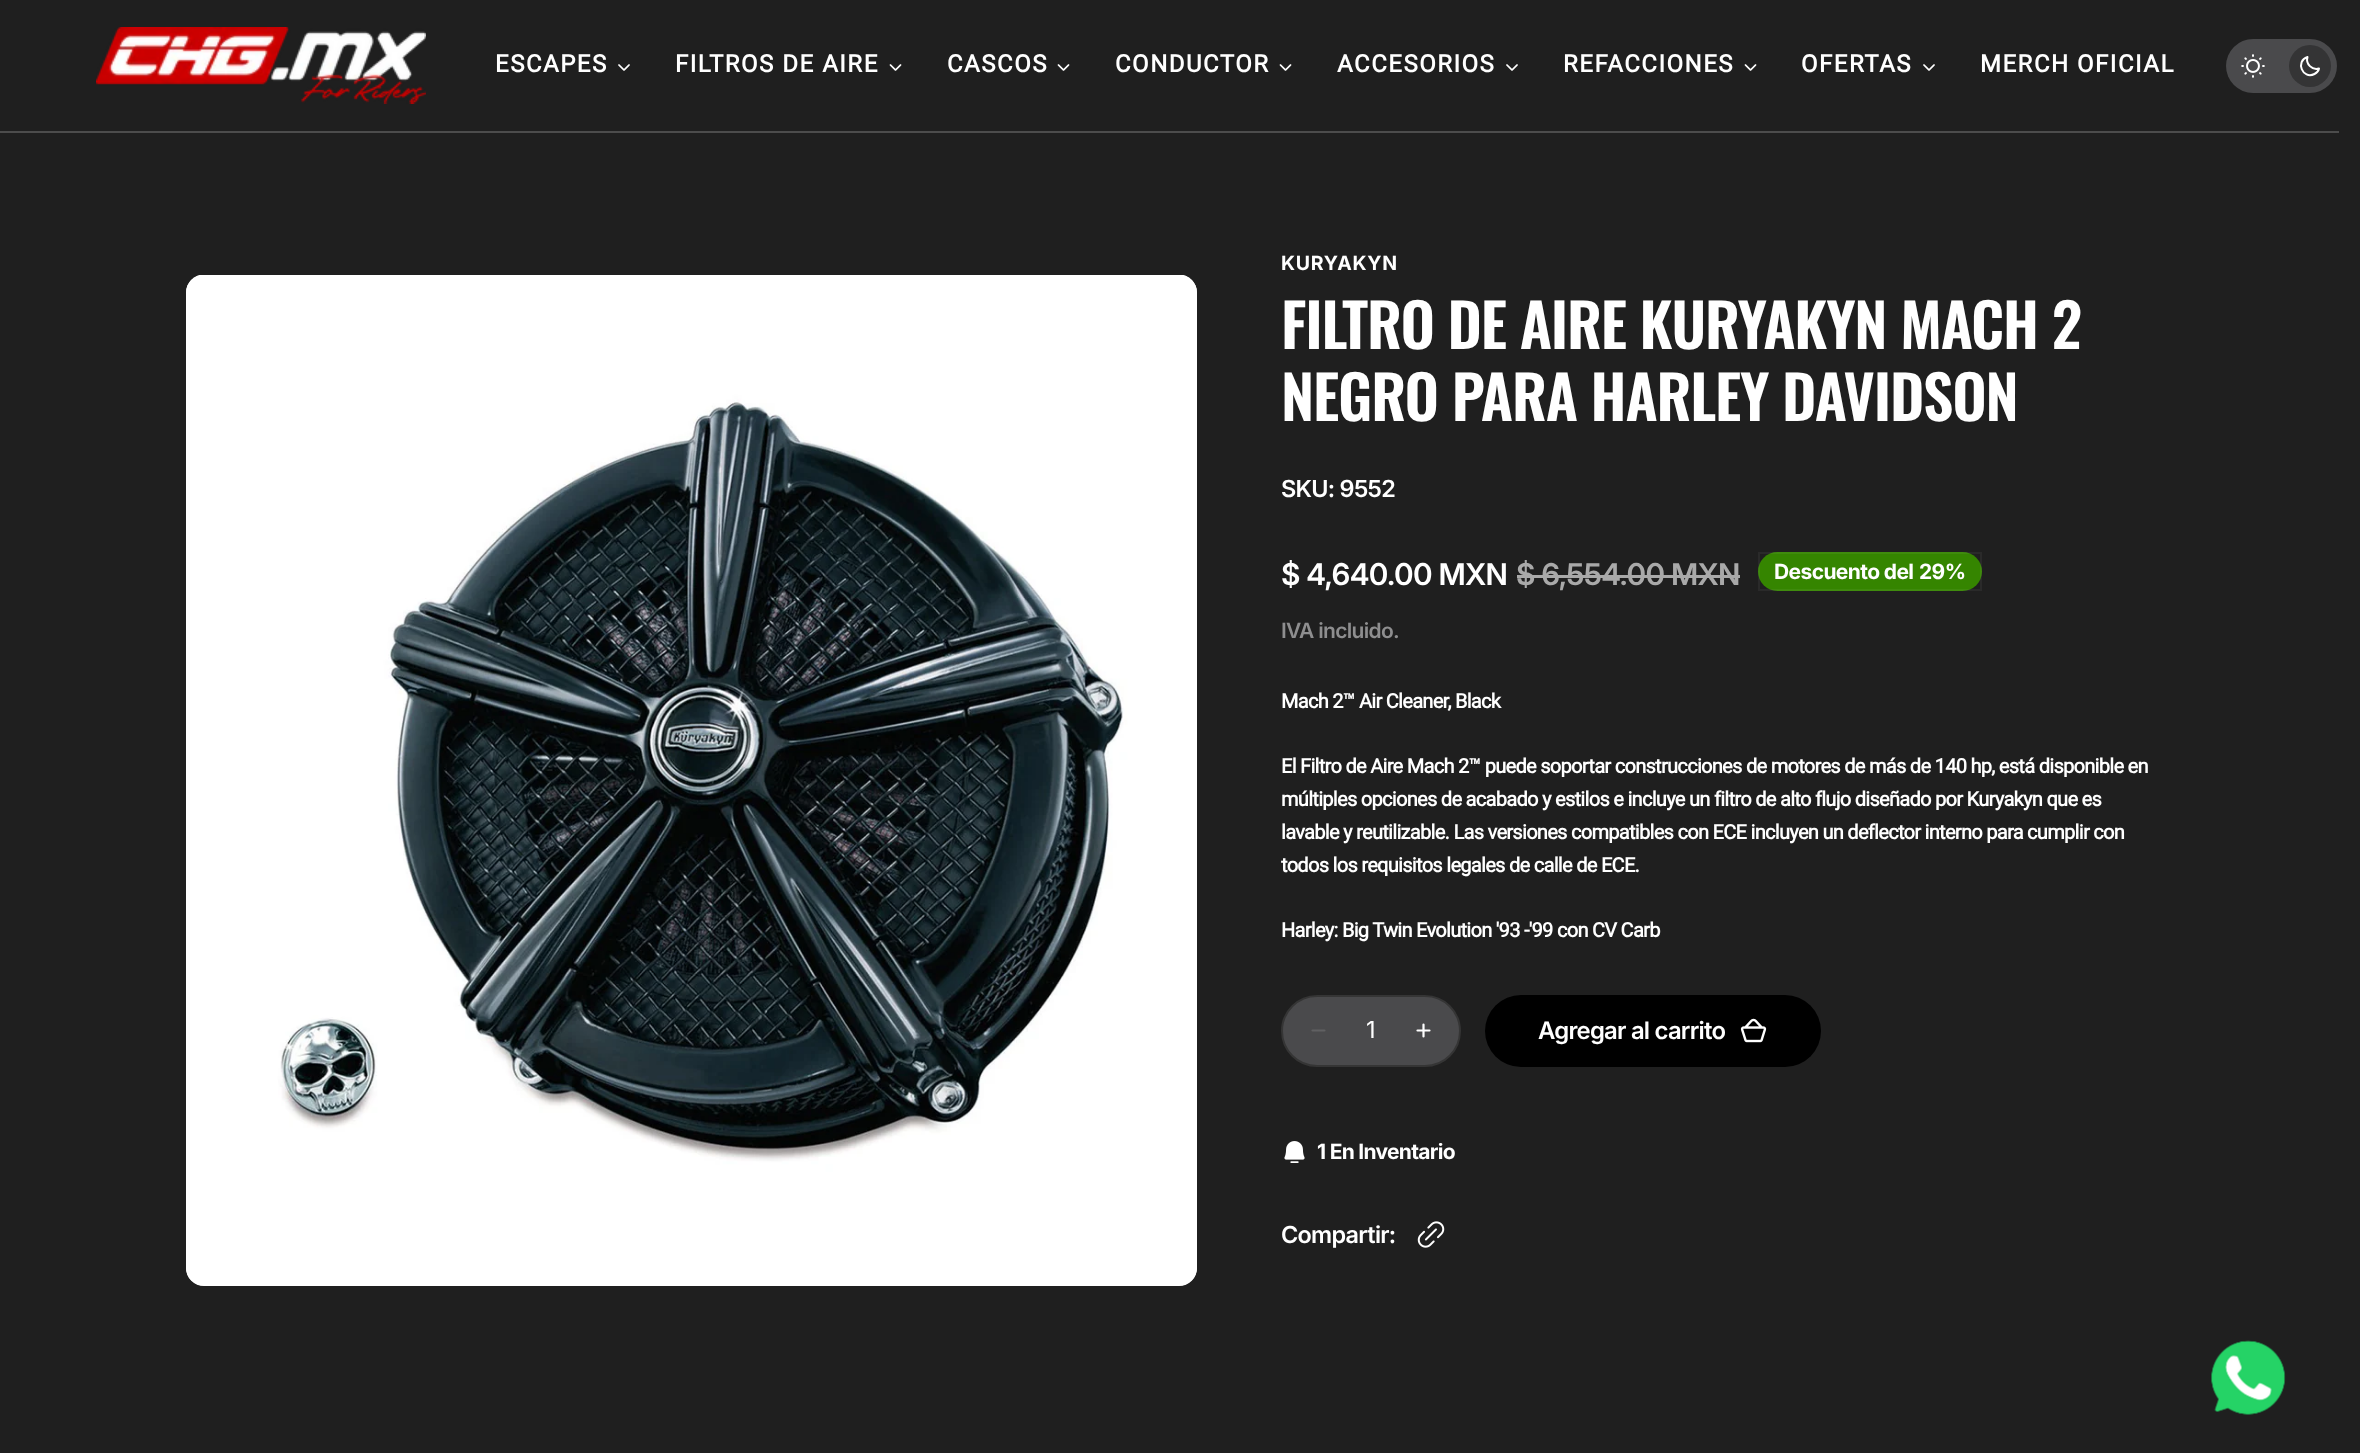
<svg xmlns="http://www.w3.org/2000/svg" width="2360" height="1453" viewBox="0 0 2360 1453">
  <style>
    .t1 { font: bold 24px Roboto; letter-spacing: 1.5px; fill: #fff; }
    .t2 { font: bold 19.5px Inter; letter-spacing: 0.75px; fill: #fff; }
    .t3 { font: 600 60px Oswald; letter-spacing: -1.2px; fill: #fff; }
    .t4 { font: 600 23.5px Inter; letter-spacing: -0.7px; fill: #fff; }
    .t5 { font: 600 30px 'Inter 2'; letter-spacing: -0.7px; fill: #fff; }
    .t6 { font: 600 30px 'Inter 2'; letter-spacing: -0.7px; fill: #a9a9a9; }
    .t7 { font: bold 21px Inter; letter-spacing: -0.6px; fill: #fff; }
    .t8 { font: 600 21px 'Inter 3'; letter-spacing: -0.7px; fill: #8e8e8f; }
    .t9 { font: bold 20px Roboto; letter-spacing: -0.7px; fill: #fff; }
    .t10 { font: 23.5px Inter; fill: #fff; }
    .t11 { font: 600 24px 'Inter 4'; letter-spacing: -0.75px; fill: #fff; }
    .t12 { font: bold 21px Inter; letter-spacing: -0.7px; fill: #fff; }
  </style>
  <rect width="100%" height="100%" fill="#1f1f1f"/>
  <image x="96" y="27" width="330" height="77" href="images/1.png"/>
  <text x="495" y="72" class="t1">ESCAPES</text>
  <image x="618" y="64" width="12" height="7" href="images/2.png"/>
  <text x="675" y="72" class="t1">FILTROS DE AIRE</text>
  <image x="889" y="64" width="13" height="7" href="images/3.png"/>
  <text x="947" y="72" class="t1">CASCOS</text>
  <image x="1057" y="64" width="13" height="7" href="images/3.png"/>
  <text x="1115" y="72" class="t1">CONDUCTOR</text>
  <image x="1279" y="64" width="13" height="7" href="images/3.png"/>
  <text x="1337" y="72" class="t1">ACCESORIOS</text>
  <image x="1506" y="64" width="12" height="7" href="images/2.png"/>
  <text x="1563" y="72" class="t1">REFACCIONES</text>
  <image x="1744" y="64" width="13" height="7" href="images/3.png"/>
  <text x="1801" y="72" class="t1">OFERTAS</text>
  <image x="1923" y="64" width="12" height="7" href="images/2.png"/>
  <text x="1980" y="72" class="t1">MERCH OFICIAL</text>
  <rect x="2226" y="39" width="111" height="54" rx="27" fill="#4a4a4c"/>
  <image x="2241" y="54" width="24" height="24" href="images/4.png"/>
  <circle cx="2310" cy="66" r="21" fill="#343435"/>
  <path d="M2319 68.5C2312 70.5 2305.5 64 2307.5 57C2295 61 2302.5 80 2314.5 74C2316.5 73 2318.5 71 2319 68.5Z" fill="none" stroke="#fff" stroke-width="2" stroke-linejoin="round"/>
  <rect x="0" y="131" width="2339" height="2" fill="#4c4c4c"/>
  <rect x="186" y="275" width="1011" height="1011" rx="18" fill="#fff"/>
  <image x="186" y="275" width="1011" height="1011" href="images/5.png"/>
  <text x="1281" y="270" class="t2">KURYAKYN</text>
  <text x="1281" y="349" class="t3">FILTRO DE AIRE KURYAKYN MACH 2</text>
  <text x="1281" y="421" class="t3">NEGRO PARA HARLEY DAVIDSON</text>
  <text x="1281" y="497" class="t4">SKU: 9552</text>
  <text x="1281" y="585" class="t5">$ 4,640.00 MXN</text>
  <text x="1516" y="585" class="t6">$ 6,554.00 MXN</text>
  <rect x="1517" y="575" width="223" height="3" fill="#a9a9a9"/>
  <rect x="1758" y="552" width="224" height="39" rx="19.5" fill="#358500"/>
  <rect x="1759" y="553" width="222" height="37" fill="none" stroke="#ffffff0d" stroke-width="2"/>
  <text x="1774" y="579" class="t7">Descuento del</text>
  <text x="1919" y="579" class="t7">29%</text>
  <text x="1281" y="638" class="t8">IVA incluido.</text>
  <text x="1281" y="708" class="t9">Mach 2™ Air Cleaner, Black</text>
  <text x="1281" y="773" class="t9">El Filtro de Aire Mach 2™ puede soportar construcciones de motores de más de 140 hp, está disponible en</text>
  <text x="1281" y="806" class="t9">múltiples opciones de acabado y estilos e incluye un filtro de alto flujo diseñado por Kuryakyn que es</text>
  <text x="1281" y="839" class="t9">lavable y reutilizable. Las versiones compatibles con ECE incluyen un deflector interno para cumplir con</text>
  <text x="1281" y="872" class="t9">todos los requisitos legales de calle de ECE.</text>
  <text x="1281" y="937" class="t9">Harley: Big Twin Evolution '93 -'99 con CV Carb</text>
  <rect x="1282" y="996" width="178" height="70" rx="35" fill="#4a4a4c" stroke="#353535" stroke-width="2"/>
  <path d="M1324.5 1030.5H1312.5" fill="none" stroke="#606062" stroke-width="2.2" stroke-linecap="round"/>
  <text x="1366" y="1038" class="t10">1</text>
  <path d="M1423.5 1024.5V1036.5M1429.5 1030.5H1417.5" fill="none" stroke="#fff" stroke-width="2.2" stroke-linecap="round"/>
  <rect x="1485" y="995" width="336" height="72" rx="36" fill="#000"/>
  <text x="1538" y="1039" class="t11">Agregar al carrito</text>
  <image x="1740" y="1018" width="27" height="25" href="images/6.png"/>
  <image x="1284" y="1141" width="21" height="22" href="images/7.png"/>
  <text x="1317" y="1159" class="t12">1 En Inventario</text>
  <text x="1281" y="1243" class="t4">Compartir:</text>
  <image x="1417" y="1221" width="28" height="27" href="images/8.png"/>
  <image x="2211" y="1340" width="75" height="75" href="images/9.png"/>
</svg>
